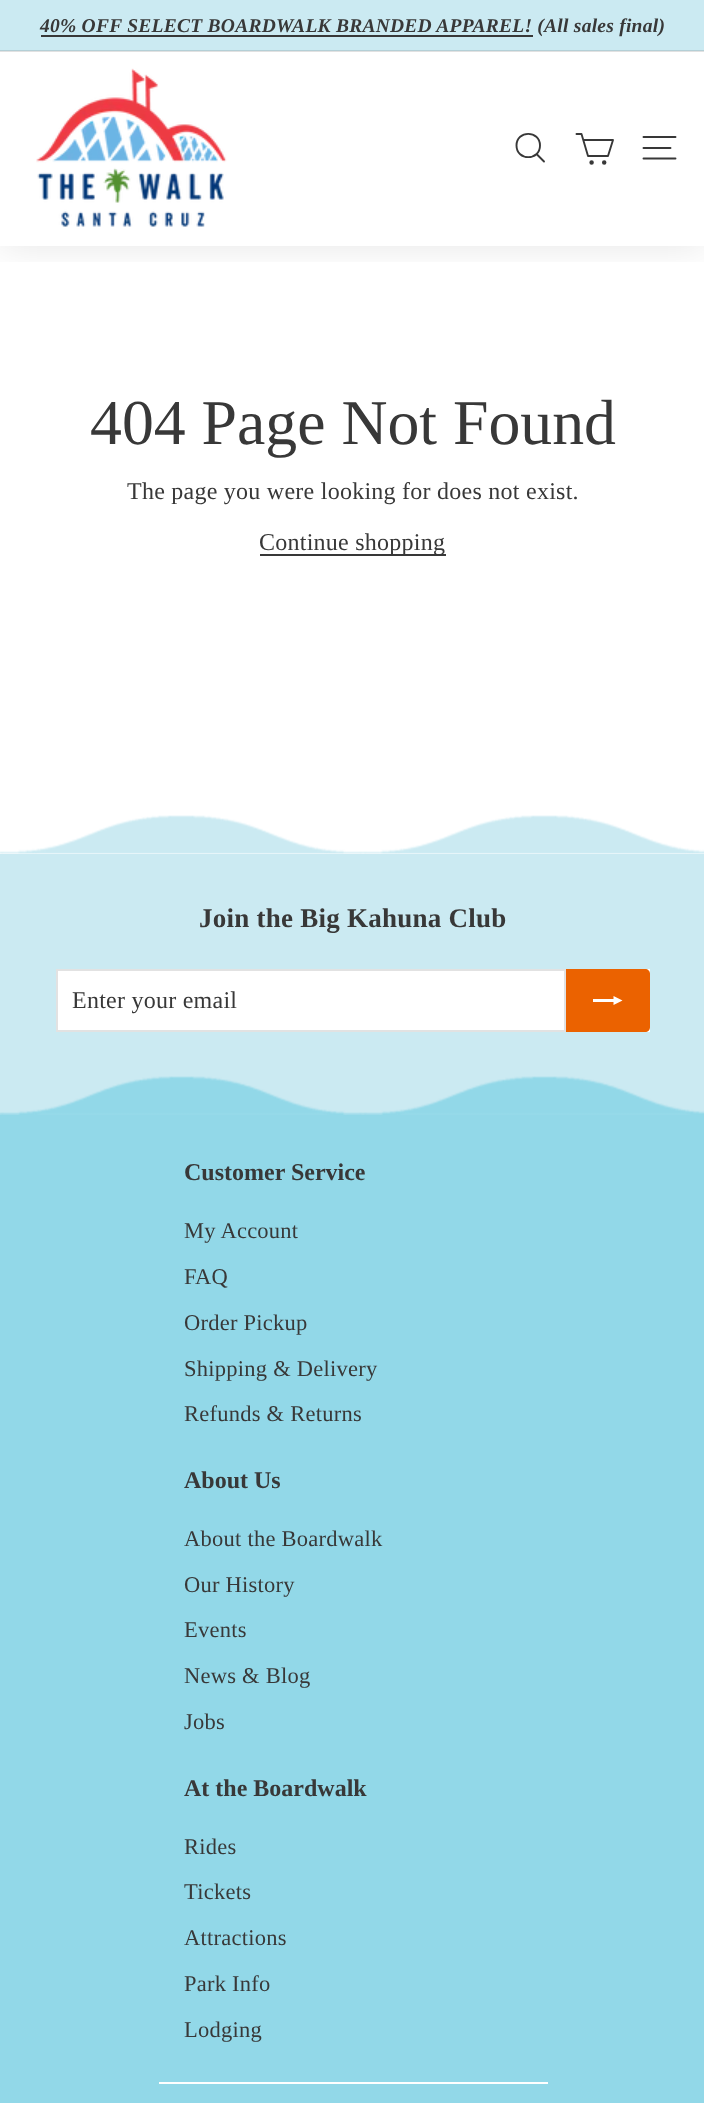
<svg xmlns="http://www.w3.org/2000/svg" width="704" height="2103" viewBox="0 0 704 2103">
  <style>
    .t1 { font: italic bold 19.5px Liberation Serif; letter-spacing: 0.25px; fill: #383838; }
    .t2 { font: 63.75px Liberation Serif; fill: #383838; }
    .t3 { font: 24px Liberation Serif; letter-spacing: 0.25px; fill: #383838; }
    .t4 { font: bold 27px Liberation Serif; letter-spacing: 0.25px; fill: #383838; }
    .t5 { font: bold 24px Liberation Serif; fill: #383838; }
    .t6 { font: 22.5px Liberation Serif; letter-spacing: 0.25px; fill: #383838; }
  </style>
  <defs>
    <clipPath id="clip1"><rect x="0" y="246" width="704" height="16"/></clipPath>
    <clipPath id="clip2"><rect x="593" y="986" width="30" height="30"/></clipPath>
  </defs>
  <rect width="100%" height="100%" fill="#fff"/>
  <g clip-path="url(#clip1)">
    <rect x="0" y="51" width="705" height="195" fill="#0000001a" filter="blur(19px)"/>
  </g>
  <image x="36" y="68" width="191" height="159" href="images/1.png"/>
  <path d="M540 145.5C540 161 516.5 161 516.5 145.5C516.5 130 540 130 540 145.5ZM544 161.5L536.5 154" fill="none" stroke="#383838" stroke-width="1.9" stroke-linecap="round" stroke-linejoin="round"/>
  <path d="M583.5 140H613L608 156H588L581.5 134H576.5" fill="none" stroke="#383838" stroke-width="1.9" stroke-linecap="round" stroke-linejoin="round"/>
  <circle cx="591.6" cy="162.5" r="1.3" fill="#383838" stroke="#383838" stroke-width="1.9"/>
  <circle cx="604.2" cy="162.5" r="1.3" fill="#383838" stroke="#383838" stroke-width="1.9"/>
  <path d="M643.5 137H675.5M643.5 148H670.5M643.5 158.5H675.5" fill="none" stroke="#383838" stroke-width="1.9" stroke-linecap="round" stroke-linejoin="round"/>
  <rect x="0" y="0" width="704" height="51" fill="#cbeaf2"/>
  <rect x="41" y="35" width="492" height="2" fill="#383838"/>
  <text x="40" y="32" class="t1">40% OFF SELECT BOARDWALK BRANDED APPAREL! (All sales final)</text>
  <rect x="0" y="50" width="704" height="2" fill="#38383826"/>
  <text x="90" y="444" class="t2">404 Page Not Found</text>
  <text x="127" y="499" class="t3">The page you were looking for does not exist.</text>
  <rect x="260" y="554" width="186" height="2" fill="#383838"/>
  <text x="259" y="550" class="t3">Continue shopping</text>
  <image x="0" y="815" width="704" height="39" href="images/2.png"/>
  <rect x="0" y="854" width="704" height="261" fill="#cbeaf2"/>
  <text x="199" y="927" class="t4">Join the Big Kahuna Club</text>
  <rect x="58" y="969" width="592" height="63" fill="#fff"/>
  <rect x="57" y="970" width="508" height="61" fill="none" stroke="#e2e2e2" stroke-width="2"/>
  <text x="72" y="1008" class="t3">Enter your email</text>
  <path d="M566 969H645C648 969 650 971 650 974V1027C650 1030 648 1032 645 1032H566Z" fill="#eb6200"/>
  <g clip-path="url(#clip2)">
    <path d="M592.5 1002V999H613.5V996L622.5 1000.5L613.5 1005V1002Z" fill="#fff"/>
  </g>
  <image x="0" y="1076" width="704" height="39" href="images/3.png"/>
  <rect x="0" y="1115" width="704" height="988" fill="#92d8e8"/>
  <text x="184" y="1180" class="t5">Customer Service</text>
  <text x="184" y="1238" class="t6">My Account</text>
  <text x="184" y="1284" class="t6">FAQ</text>
  <text x="184" y="1330" class="t6">Order Pickup</text>
  <text x="184" y="1376" class="t6">Shipping &amp; Delivery</text>
  <text x="184" y="1421" class="t6">Refunds &amp; Returns</text>
  <text x="184" y="1488" class="t5">About Us</text>
  <text x="184" y="1546" class="t6">About the Boardwalk</text>
  <text x="184" y="1592" class="t6">Our History</text>
  <text x="184" y="1637" class="t6">Events</text>
  <text x="184" y="1683" class="t6">News &amp; Blog</text>
  <text x="184" y="1729" class="t6">Jobs</text>
  <text x="184" y="1796" class="t5">At the Boardwalk</text>
  <text x="184" y="1854" class="t6">Rides</text>
  <text x="184" y="1899" class="t6">Tickets</text>
  <text x="184" y="1945" class="t6">Attractions</text>
  <text x="184" y="1991" class="t6">Park Info</text>
  <text x="184" y="2037" class="t6">Lodging</text>
  <rect x="159" y="2082" width="389" height="2" fill="#fff"/>
</svg>
